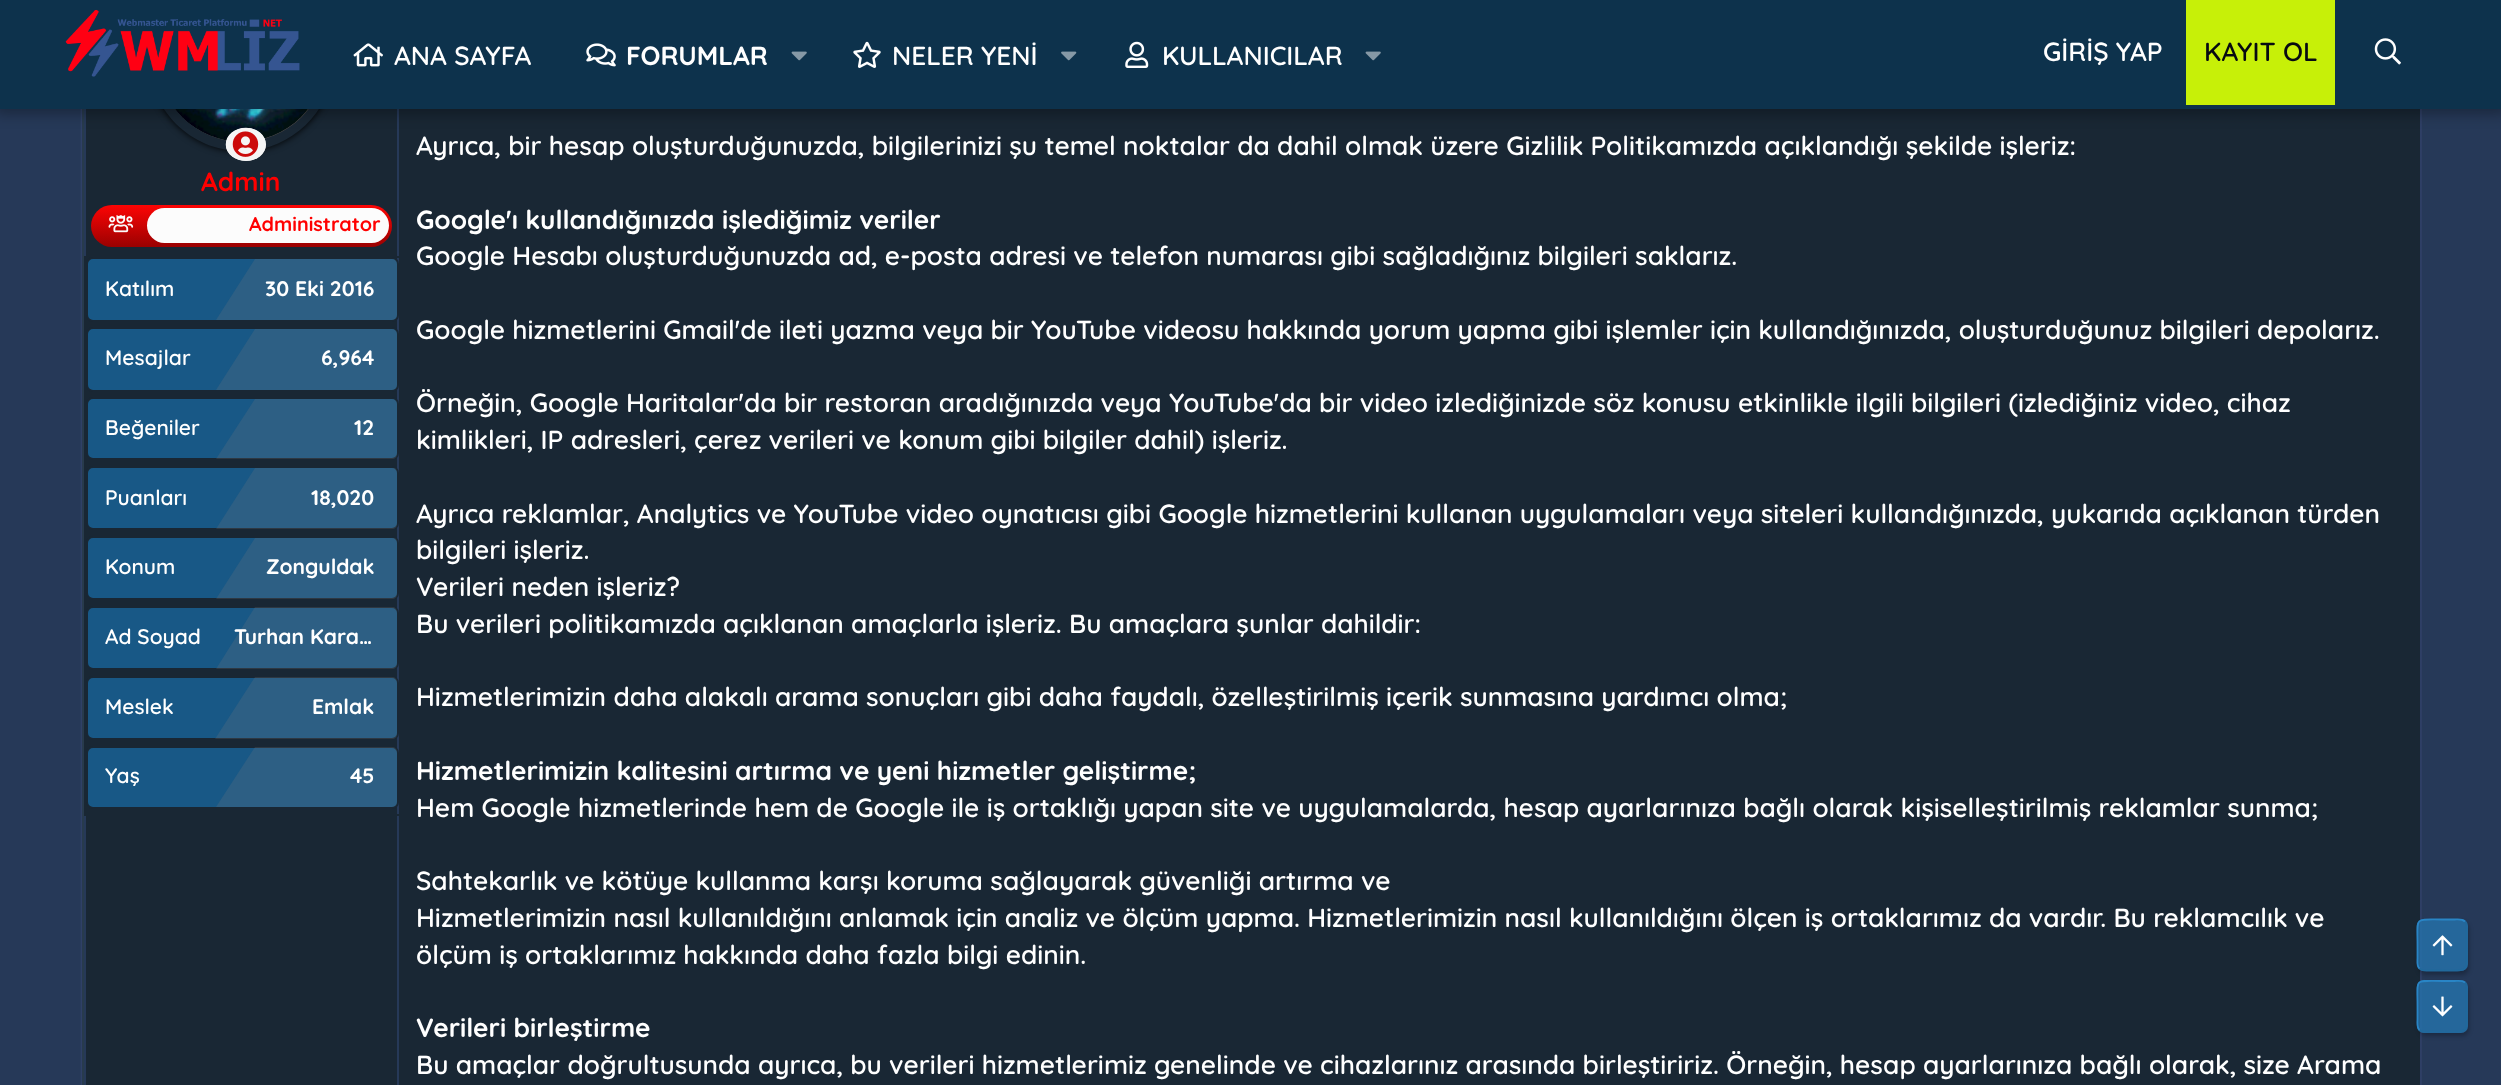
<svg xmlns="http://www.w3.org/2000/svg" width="2501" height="1085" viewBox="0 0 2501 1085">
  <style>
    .t1 { font: 600 26.25px Quicksand; fill: #fff; }
    .t2 { font: 300 26.25px Quicksand; fill: #fff; }
    .t3 { font: 600 26.25px Quicksand; fill: #070a11; }
    .t4 { font: 300 26.25px Quicksand; fill: #f00; }
    .t5 { font: 300 19.75px Quicksand; fill: #f00; }
    .t6 { font: 600 21px Quicksand; fill: #fff; }
    .t7 { font: 300 21px Quicksand; fill: #fff; }
  </style>
  <defs>
    <clipPath id="clip1"><path d="M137 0H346V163H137ZM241.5-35C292.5-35 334 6.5 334 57.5V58.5C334 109.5 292.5 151 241.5 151C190.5 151 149 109.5 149 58.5V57.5C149 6.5 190.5-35 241.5-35Z" clip-rule="evenodd"/></clipPath>
    <linearGradient id="g1" gradientUnits="userSpaceOnUse" x1="242" y1="205" x2="242" y2="247"><stop offset="0" stop-color="#fd0404"/><stop offset="1" stop-color="#9a0101"/></linearGradient>
    <clipPath id="clip2"><path d="M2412 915H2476V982H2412ZM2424 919H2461C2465 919 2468 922 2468 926V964C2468 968 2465 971 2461 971H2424C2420 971 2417 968 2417 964V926C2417 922 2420 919 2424 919Z" clip-rule="evenodd"/></clipPath>
    <clipPath id="clip3"><path d="M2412 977H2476V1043H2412ZM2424 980H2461C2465 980 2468 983 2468 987V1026C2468 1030 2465 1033 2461 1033H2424C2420 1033 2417 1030 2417 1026V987C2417 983 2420 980 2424 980Z" clip-rule="evenodd"/></clipPath>
  </defs>
  <rect width="100%" height="100%" fill="#263958"/>
  <path d="M2419.5-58.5C2420.5-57.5 2421-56 2421-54V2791C2421 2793 2420.5 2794.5 2419.5 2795.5" fill="none" stroke="#304067" stroke-width="1.8"/>
  <path d="M83 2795.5C82 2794.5 81.5 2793 81.5 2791V-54C81.5-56 82-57.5 83-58.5" fill="none" stroke="#304067" stroke-width="1.8"/>
  <path d="M2415-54C2418-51 2420-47 2420-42V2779C2420 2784 2418 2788 2415 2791L2411 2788C2414 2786 2415 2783 2415 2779V-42C2415-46 2414-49 2411-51Z" fill="#192734"/>
  <path d="M82-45C83-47 84-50 85-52L86-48C85-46 84-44 84-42V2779C84 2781 85 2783 86 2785L85 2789C84 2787 83 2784 82 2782Z" fill="#283b4d"/>
  <rect x="86" y="109" width="311" height="976" fill="#192734"/>
  <g clip-path="url(#clip1)">
    <rect x="149" y="-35" width="185" height="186" rx="92.5" fill="#000" filter="blur(3.5px)"/>
  </g>
  <circle cx="242" cy="58" r="84" fill="#434343"/>
  <image x="175" y="109" width="133" height="32" href="images/9.png"/>
  <ellipse cx="246" cy="144.5" rx="20" ry="16.5" fill="#f5f5f5"/>
  <path d="M246 129.5C256 129.5 264 136 264 144.5C264 152.5 256 159 246 159C235.5 159 227.5 152.5 227.5 144.5C227.5 136 235.5 129.5 246 129.5Z" fill="none" stroke="#f5f5f5" stroke-width="3.5"/>
  <image x="232" y="131" width="27" height="26" href="images/10.png"/>
  <rect x="399" y="109" width="2016" height="976" fill="#192734"/>
  <rect x="-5" y="-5" width="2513" height="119" fill="#0000004d" filter="blur(7px)"/>
  <rect x="0" y="0" width="2501" height="109" fill="#0d324c"/>
  <image x="65" y="9" width="235" height="68" href="images/1.png"/>
  <image x="353" y="43" width="30" height="24" href="images/2.png"/>
  <text x="394" y="65" class="t1">ANA SAYFA</text>
  <image x="586" y="43" width="30" height="24" href="images/3.png"/>
  <text x="626" y="65" class="t2">FORUMLAR</text>
  <image x="791" y="51" width="16" height="10" href="images/4.png"/>
  <image x="853" y="41" width="28" height="27" href="images/5.png"/>
  <text x="892" y="65" class="t1">NELER YENİ</text>
  <image x="1061" y="51" width="16" height="10" href="images/6.png"/>
  <image x="1125" y="41" width="24" height="27" href="images/7.png"/>
  <text x="1162" y="65" class="t1">KULLANICILAR</text>
  <image x="1365" y="51" width="16" height="10" href="images/4.png"/>
  <text x="2043" y="61" class="t1">GİRİŞ YAP</text>
  <rect x="2186" y="0" width="149" height="105" fill="#c7f008"/>
  <text x="2204" y="61" class="t3">KAYIT OL</text>
  <image x="2374" y="38" width="27" height="27" href="images/8.png"/>
  <text x="201" y="191" class="t4">Admin</text>
  <rect x="91" y="205" width="301" height="42" rx="21" fill="url(#g1)"/>
  <image x="108" y="215" width="26" height="18" href="images/11.png"/>
  <rect x="147" y="208" width="242" height="35" rx="17.5" fill="#fcfcfc"/>
  <text x="249" y="231" class="t5">Administrator</text>
  <rect x="85" y="257" width="315" height="558" fill="none" stroke="#192734" stroke-width="2"/>
  <rect x="87" y="258" width="311" height="63" rx="6" fill="#185886" stroke="#192734" stroke-width="2"/>
  <text x="105" y="296" class="t6">Katılım</text>
  <path d="M255 259L216 320H392C395 320 397 318 397 315V264C397 261 395 259 393 259Z" fill="#807b7b33"/>
  <text x="265" y="296" class="t7">30 Eki 2016</text>
  <rect x="87" y="328" width="311" height="63" rx="6" fill="#185886" stroke="#192734" stroke-width="2"/>
  <text x="105" y="365" class="t6">Mesajlar</text>
  <path d="M216 390L255 329H392C395 329 397 331 397 334V385C397 388 395 390 392 390Z" fill="#807b7b33"/>
  <text x="321" y="365" class="t7">6,964</text>
  <rect x="87" y="398" width="311" height="61" rx="6" fill="#185886" stroke="#192734" stroke-width="2"/>
  <text x="105" y="435" class="t6">Beğeniler</text>
  <path d="M216 459L255 399H392C395 399 397 401 397 404V454C397 457 395 459 392 459Z" fill="#807b7b33"/>
  <text x="354" y="435" class="t7">12</text>
  <rect x="87" y="467" width="311" height="62" rx="6" fill="#185886" stroke="#192734" stroke-width="2"/>
  <text x="105" y="505" class="t6">Puanları</text>
  <path d="M255 468L216 529H392C395 529 397 527 397 524V472C397 470 396 469 395 468Z" fill="#807b7b33"/>
  <text x="311" y="505" class="t7">18,020</text>
  <rect x="87" y="537" width="311" height="62" rx="6" fill="#185886" stroke="#192734" stroke-width="2"/>
  <path d="M255 538L216 599H392C395 599 397 597 397 594V542C397 540 396 538 394 538Z" fill="#807b7b33"/>
  <text x="105" y="574" class="t6">Konum</text>
  <text x="266" y="574" class="t7">Zonguldak</text>
  <rect x="87" y="607" width="311" height="62" rx="6" fill="#185886" stroke="#192734" stroke-width="2"/>
  <text x="105" y="644" class="t6">Ad Soyad</text>
  <path d="M255 607L216 669H392C395 669 397 667 397 664V612C397 610 396 608 394 607Z" fill="#807b7b33"/>
  <text x="234" y="644" class="t7">Turhan Kara…</text>
  <rect x="87" y="677" width="311" height="62" rx="6" fill="#185886" stroke="#192734" stroke-width="2"/>
  <text x="105" y="714" class="t6">Meslek</text>
  <path d="M215 739L255 677H392C395 677 397 679 397 682V734C397 737 395 739 392 739Z" fill="#807b7b33"/>
  <text x="312" y="714" class="t7">Emlak</text>
  <rect x="87" y="747" width="311" height="61" rx="6" fill="#185886" stroke="#192734" stroke-width="2"/>
  <text x="105" y="783" class="t6">Yaş</text>
  <path d="M216 807L255 747H392C395 747 397 749 397 752V802C397 805 395 807 392 807Z" fill="#807b7b33"/>
  <text x="350" y="783" class="t7">45</text>
  <text x="416" y="155" class="t1">Ayrıca, bir hesap oluşturduğunuzda, bilgilerinizi şu temel noktalar da dahil olmak üzere Gizlilik Politikamızda açıklandığı şekilde işleriz:</text>
  <text x="416" y="229" class="t2">Google'ı kullandığınızda işlediğimiz veriler</text>
  <text x="416" y="265" class="t1">Google Hesabı oluşturduğunuzda ad, e-posta adresi ve telefon numarası gibi sağladığınız bilgileri saklarız.</text>
  <text x="416" y="339" class="t1">Google hizmetlerini Gmail'de ileti yazma veya bir YouTube videosu hakkında yorum yapma gibi işlemler için kullandığınızda, oluşturduğunuz bilgileri depolarız.</text>
  <text x="416" y="412" class="t1">Örneğin, Google Haritalar'da bir restoran aradığınızda veya YouTube'da bir video izlediğinizde söz konusu etkinlikle ilgili bilgileri (izlediğiniz video, cihaz</text>
  <text x="416" y="449" class="t1">kimlikleri, IP adresleri, çerez verileri ve konum gibi bilgiler dahil) işleriz.</text>
  <text x="416" y="523" class="t1">Ayrıca reklamlar, Analytics ve YouTube video oynatıcısı gibi Google hizmetlerini kullanan uygulamaları veya siteleri kullandığınızda, yukarıda açıklanan türden</text>
  <text x="416" y="559" class="t1">bilgileri işleriz.</text>
  <text x="416" y="596" class="t1">Verileri neden işleriz?</text>
  <text x="416" y="633" class="t1">Bu verileri politikamızda açıklanan amaçlarla işleriz. Bu amaçlara şunlar dahildir:</text>
  <text x="416" y="706" class="t1">Hizmetlerimizin daha alakalı arama sonuçları gibi daha faydalı, özelleştirilmiş içerik sunmasına yardımcı olma;</text>
  <text x="416" y="780" class="t2">Hizmetlerimizin kalitesini artırma ve yeni hizmetler geliştirme;</text>
  <text x="416" y="817" class="t1">Hem Google hizmetlerinde hem de Google ile iş ortaklığı yapan site ve uygulamalarda, hesap ayarlarınıza bağlı olarak kişiselleştirilmiş reklamlar sunma;</text>
  <text x="416" y="890" class="t1">Sahtekarlık ve kötüye kullanma karşı koruma sağlayarak güvenliği artırma ve</text>
  <text x="416" y="927" class="t1">Hizmetlerimizin nasıl kullanıldığını anlamak için analiz ve ölçüm yapma. Hizmetlerimizin nasıl kullanıldığını ölçen iş ortaklarımız da vardır. Bu reklamcılık ve</text>
  <text x="416" y="964" class="t1">ölçüm iş ortaklarımız hakkında daha fazla bilgi edinin.</text>
  <text x="416" y="1037" class="t2">Verileri birleştirme</text>
  <text x="416" y="1074" class="t1">Bu amaçlar doğrultusunda ayrıca, bu verileri hizmetlerimiz genelinde ve cihazlarınız arasında birleştiririz. Örneğin, hesap ayarlarınıza bağlı olarak, size Arama</text>
  <g clip-path="url(#clip2)">
    <rect x="2419" y="922" width="50" height="53" rx="7" fill="#00000040" filter="blur(2px)"/>
  </g>
  <rect x="2417" y="919" width="51" height="52" rx="7" fill="#2577b1bf"/>
  <path d="M2465 921.5C2467.5 924 2466.5 929 2466.5 932V945C2466.5 973.5 2470.5 970.5 2442 970.5H2430C2426.5 970.5 2422 971.5 2419.5 968.5" fill="none" stroke="#21699c" stroke-width="1.8"/>
  <path d="M2419.5 968.5C2416.5 966 2417.5 961 2417.5 958V945C2417.5 916.5 2413.5 919.5 2442 919.5H2454.5C2457.5 919.5 2462 918.5 2465 921.5" fill="none" stroke="#2985c6" stroke-width="1.8"/>
  <image x="2432" y="935" width="21" height="21" href="images/12.png"/>
  <g clip-path="url(#clip3)">
    <rect x="2419" y="984" width="50" height="52" rx="7" fill="#00000040" filter="blur(2px)"/>
  </g>
  <rect x="2417" y="980" width="51" height="53" rx="7" fill="#2577b1bf"/>
  <path d="M2465 982.5C2467.5 985.5 2466.5 990 2466.5 993.5V1006C2466.5 1035 2470.5 1031.5 2442 1031.5H2430C2426.5 1031.5 2422 1032.5 2419.5 1030" fill="none" stroke="#21699c" stroke-width="1.8"/>
  <path d="M2419.5 1030C2416.5 1027 2417.5 1022.5 2417.5 1019V1006C2417.5 977.5 2413.5 981 2442 981H2454.5C2457.5 981 2462 980 2465 982.5" fill="none" stroke="#2985c6" stroke-width="1.8"/>
  <image x="2432" y="996" width="21" height="21" href="images/13.png"/>
</svg>
